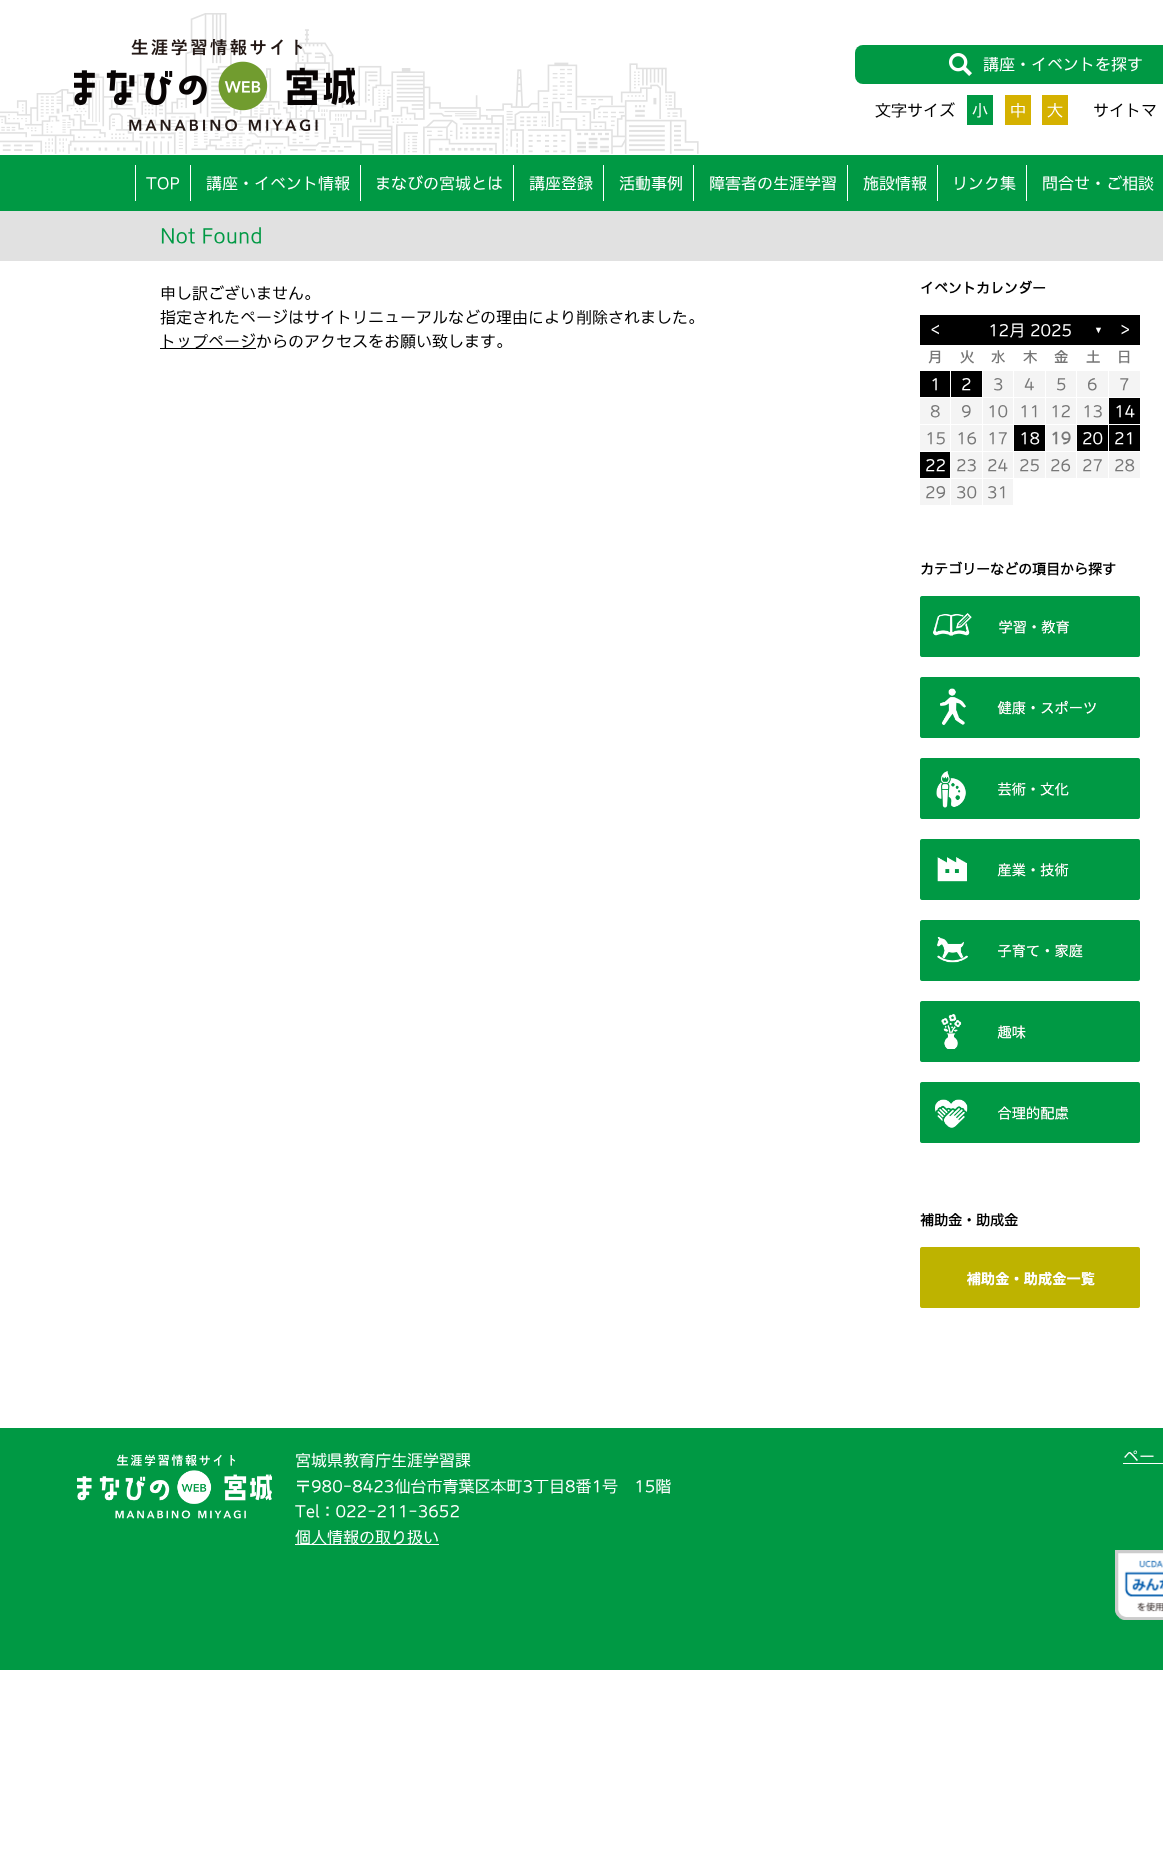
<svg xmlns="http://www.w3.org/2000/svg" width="1163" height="1871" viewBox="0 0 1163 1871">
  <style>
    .t1 { font: 16px 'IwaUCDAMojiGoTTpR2'; fill: #fff; }
    .t2 { font: 16px 'IwaUCDAMojiGoTTpR2'; fill: #000; }
    .t3 { font: 20px 'IwaUCDAMojiGoTTpR2'; fill: #094; }
    .t4 { font: bold 14px 'IwaUCDAMojiGoTTpR2'; fill: #000; }
    .t5 { font: 18px 'IwaUCDAMojiGoTTpR2'; fill: #fff; }
    .t6 { font: 9px Liberation Sans; fill: #fff; }
    .t7 { font: bold 14px 'IwaUCDAMojiGoTTpR2'; fill: #777; }
    .t8 { font: 16px 'IwaUCDAMojiGoTTpR2'; fill: #777; }
    .t9 { font: bold 16px 'IwaUCDAMojiGoTTpR2'; fill: #777; }
  </style>
  <rect width="100%" height="100%" fill="#fff"/>
  <image x="0" y="13" width="699" height="141" href="images/1.png"/>
  <image x="74" y="39" width="281" height="92" href="images/2.png"/>
  <rect x="855" y="45" width="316" height="39" rx="8" fill="#094"/>
  <image x="949" y="53" width="23" height="23" href="images/3.png"/>
  <text x="983" y="70" class="t1">講座・イベントを探す</text>
  <text x="875" y="116" class="t2">文字サイズ</text>
  <rect x="967" y="95" width="26" height="30" fill="#094"/>
  <text x="972" y="116" class="t1">小</text>
  <rect x="1005" y="95" width="26" height="30" fill="#d5b100"/>
  <text x="1010" y="116" class="t1">中</text>
  <rect x="1042" y="95" width="26" height="30" fill="#d5b100"/>
  <text x="1047" y="116" class="t1">大</text>
  <text x="1093" y="116" class="t2">サイトマ</text>
  <rect x="0" y="155" width="1163" height="56" fill="#094"/>
  <rect x="190" y="165" width="1" height="36" fill="#fff"/>
  <rect x="135" y="165" width="1" height="36" fill="#fff"/>
  <text x="146" y="189" class="t1">TOP</text>
  <rect x="360" y="165" width="1" height="36" fill="#fff"/>
  <text x="206" y="189" class="t1">講座・イベント情報</text>
  <rect x="513" y="165" width="1" height="36" fill="#fff"/>
  <text x="375" y="189" class="t1">まなびの宮城とは</text>
  <rect x="603" y="165" width="1" height="36" fill="#fff"/>
  <text x="529" y="189" class="t1">講座登録</text>
  <rect x="693" y="165" width="1" height="36" fill="#fff"/>
  <text x="619" y="189" class="t1">活動事例</text>
  <rect x="847" y="165" width="1" height="36" fill="#fff"/>
  <text x="709" y="189" class="t1">障害者の生涯学習</text>
  <rect x="937" y="165" width="1" height="36" fill="#fff"/>
  <text x="863" y="189" class="t1">施設情報</text>
  <rect x="1026" y="165" width="1" height="36" fill="#fff"/>
  <text x="952" y="189" class="t1">リンク集</text>
  <text x="1042" y="189" class="t1">問合せ・ご相談</text>
  <rect x="0" y="211" width="1163" height="50" fill="#e1e1e1"/>
  <text x="160" y="243" class="t3">Not Found</text>
  <text x="160" y="299" class="t2">申し訳ございません。</text>
  <text x="160" y="323" class="t2">指定されたページはサイトリニューアルなどの理由により削除されました。</text>
  <rect x="160" y="348" width="96" height="1" fill="#000"/>
  <text x="160" y="347" class="t2">トップページからのアクセスをお願い致します。</text>
  <text x="920" y="293" class="t4">イベントカレンダー</text>
  <rect x="920" y="315" width="220" height="30" fill="#000"/>
  <text x="930" y="336" class="t5">&lt;</text>
  <text x="988" y="336" class="t1">12月 2025</text>
  <text x="1094" y="333" class="t6">▼</text>
  <text x="1120" y="336" class="t5">&gt;</text>
  <text x="928" y="362" class="t7">月</text>
  <text x="960" y="362" class="t7">火</text>
  <text x="991" y="362" class="t7">水</text>
  <text x="1023" y="362" class="t7">木</text>
  <text x="1054" y="362" class="t7">金</text>
  <text x="1086" y="362" class="t7">土</text>
  <text x="1117" y="362" class="t7">日</text>
  <rect x="920" y="371" width="30" height="26" fill="#000"/>
  <text x="930" y="390" class="t1">1</text>
  <rect x="951" y="371" width="31" height="26" fill="#000"/>
  <text x="961" y="390" class="t1">2</text>
  <rect x="983" y="371" width="30" height="26" fill="#f4f4f4"/>
  <text x="993" y="390" class="t8">3</text>
  <rect x="1014" y="371" width="31" height="26" fill="#f4f4f4"/>
  <text x="1024" y="390" class="t8">4</text>
  <rect x="1046" y="371" width="30" height="26" fill="#f4f4f4"/>
  <text x="1056" y="390" class="t8">5</text>
  <rect x="1077" y="371" width="31" height="26" fill="#f4f4f4"/>
  <text x="1087" y="390" class="t8">6</text>
  <rect x="1109" y="371" width="31" height="26" fill="#f4f4f4"/>
  <text x="1119" y="390" class="t8">7</text>
  <rect x="920" y="398" width="30" height="26" fill="#f4f4f4"/>
  <text x="930" y="417" class="t8">8</text>
  <rect x="951" y="398" width="31" height="26" fill="#f4f4f4"/>
  <text x="961" y="417" class="t8">9</text>
  <rect x="983" y="398" width="30" height="26" fill="#f4f4f4"/>
  <text x="987" y="417" class="t8">10</text>
  <rect x="1014" y="398" width="31" height="26" fill="#f4f4f4"/>
  <text x="1019" y="417" class="t8">11</text>
  <rect x="1046" y="398" width="30" height="26" fill="#f4f4f4"/>
  <text x="1050" y="417" class="t8">12</text>
  <rect x="1077" y="398" width="31" height="26" fill="#f4f4f4"/>
  <text x="1082" y="417" class="t8">13</text>
  <rect x="1109" y="398" width="31" height="26" fill="#000"/>
  <text x="1114" y="417" class="t1">14</text>
  <rect x="920" y="425" width="30" height="26" fill="#f4f4f4"/>
  <text x="925" y="444" class="t8">15</text>
  <rect x="951" y="425" width="31" height="26" fill="#f4f4f4"/>
  <text x="956" y="444" class="t8">16</text>
  <rect x="983" y="425" width="30" height="26" fill="#f4f4f4"/>
  <text x="987" y="444" class="t8">17</text>
  <rect x="1014" y="425" width="31" height="26" fill="#000"/>
  <text x="1019" y="444" class="t1">18</text>
  <rect x="1046" y="425" width="30" height="26" fill="#f4f4f4"/>
  <text x="1050" y="444" class="t9">19</text>
  <rect x="1077" y="425" width="31" height="26" fill="#000"/>
  <text x="1082" y="444" class="t1">20</text>
  <rect x="1109" y="425" width="31" height="26" fill="#000"/>
  <text x="1114" y="444" class="t1">21</text>
  <rect x="920" y="452" width="30" height="26" fill="#000"/>
  <text x="925" y="471" class="t1">22</text>
  <rect x="951" y="452" width="31" height="26" fill="#f4f4f4"/>
  <text x="956" y="471" class="t8">23</text>
  <rect x="983" y="452" width="30" height="26" fill="#f4f4f4"/>
  <text x="987" y="471" class="t8">24</text>
  <rect x="1014" y="452" width="31" height="26" fill="#f4f4f4"/>
  <text x="1019" y="471" class="t8">25</text>
  <rect x="1046" y="452" width="30" height="26" fill="#f4f4f4"/>
  <text x="1050" y="471" class="t8">26</text>
  <rect x="1077" y="452" width="31" height="26" fill="#f4f4f4"/>
  <text x="1082" y="471" class="t8">27</text>
  <rect x="1109" y="452" width="31" height="26" fill="#f4f4f4"/>
  <text x="1114" y="471" class="t8">28</text>
  <rect x="920" y="479" width="30" height="26" fill="#f4f4f4"/>
  <text x="925" y="498" class="t8">29</text>
  <rect x="951" y="479" width="31" height="26" fill="#f4f4f4"/>
  <text x="956" y="498" class="t8">30</text>
  <rect x="983" y="479" width="30" height="26" fill="#f4f4f4"/>
  <text x="987" y="498" class="t8">31</text>
  <text x="920" y="574" class="t4">カテゴリーなどの項目から探す</text>
  <image x="920" y="596" width="220" height="61" href="images/4.png"/>
  <image x="920" y="677" width="220" height="61" href="images/5.png"/>
  <image x="920" y="758" width="220" height="61" href="images/6.png"/>
  <image x="920" y="839" width="220" height="61" href="images/7.png"/>
  <image x="920" y="920" width="220" height="61" href="images/8.png"/>
  <image x="920" y="1001" width="220" height="61" href="images/9.png"/>
  <image x="920" y="1082" width="220" height="61" href="images/10.png"/>
  <text x="920" y="1225" class="t4">補助金・助成金</text>
  <image x="920" y="1247" width="220" height="61" href="images/11.png"/>
  <rect x="0" y="1428" width="1163" height="242" fill="#094"/>
  <image x="77" y="1454" width="195" height="65" href="images/12.png"/>
  <text x="295" y="1466" class="t1">宮城県教育庁生涯学習課</text>
  <text x="295" y="1492" class="t1">〒980-8423仙台市青葉区本町3丁目8番1号　15階</text>
  <text x="295" y="1517" class="t1">Tel：022-211-3652</text>
  <rect x="295" y="1544" width="144" height="1" fill="#fff"/>
  <text x="295" y="1543" class="t1">個人情報の取り扱い</text>
  <text x="1123" y="1462" class="t1">ペー</text>
  <rect x="1123" y="1463" width="40" height="1" fill="#fff"/>
  <image x="1115" y="1550" width="48" height="70" href="images/13.png"/>
</svg>
